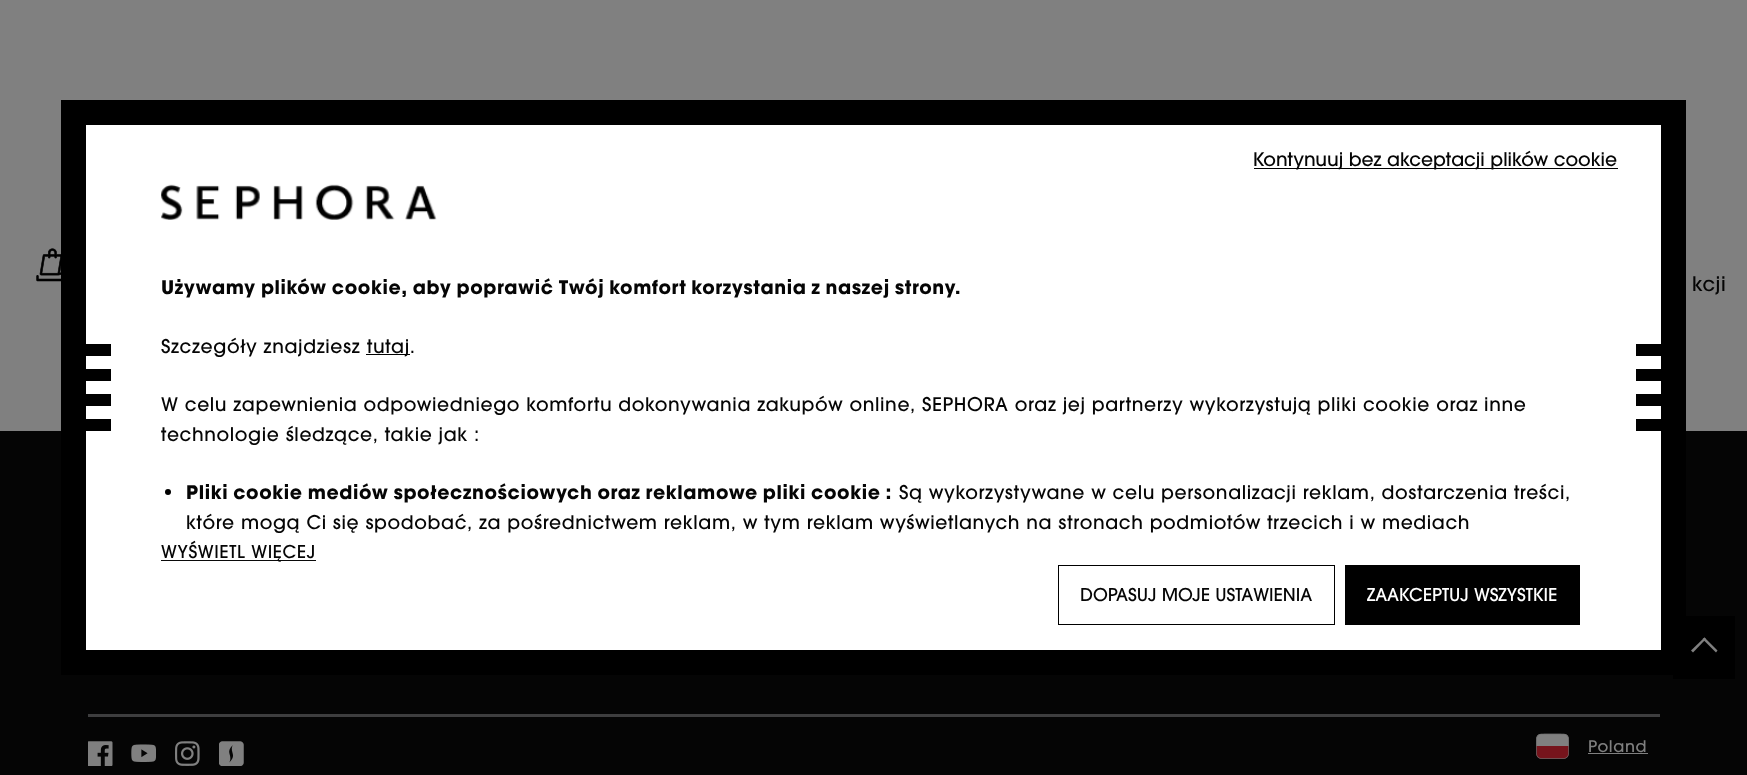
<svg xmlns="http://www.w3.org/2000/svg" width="1747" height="775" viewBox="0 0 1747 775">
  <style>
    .t1 { font: 500 18.75px 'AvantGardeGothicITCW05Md'; fill: #050505; }
    .t2 { font: 500 17.5px 'AvantGardeGothicITCW05Md'; letter-spacing: 0.62px; fill: #050505; }
    .t3 { font: 500 17.5px 'AvantGardeGothicITCW05Md'; fill: #050505; }
    .t4 { font: 500 17.5px 'AvantGardeGothicITCW05Md'; fill: #fff; }
    .t5 { font: bold 18.75px 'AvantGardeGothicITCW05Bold'; letter-spacing: 0.62px; fill: #050505; }
    .t6 { font: 500 18.75px 'AvantGardeGothicITCW05Md'; letter-spacing: 0.62px; fill: #050505; }
    .t7 { font: 500 20px 'AvantGardeGothicITCW05Md'; letter-spacing: 0.62px; fill: #050505; }
    .t8 { font: 500 16px 'AvantGardeGothicITCW05Md'; letter-spacing: 0.62px; fill: #808080; }
  </style>
  <rect width="100%" height="100%" fill="#808080"/>
  <rect x="0" y="431" width="1747" height="344" fill="#050505"/>
  <rect x="1673" y="616" width="62" height="63" fill="#000"/>
  <rect x="73.5" y="112.5" width="1600" height="550" fill="#fff" stroke="#000" stroke-width="25"/>
  <rect x="1254" y="168" width="364" height="1" fill="#000"/>
  <text x="1253" y="166" class="t1">Kontynuuj bez akceptacji plików cookie</text>
  <rect x="161" y="560" width="155" height="1" fill="#0a0a0a"/>
  <text x="161" y="558" class="t2">WYŚWIETL WIĘCEJ</text>
  <rect x="1058.5" y="565.5" width="276" height="59" fill="none" stroke="#000"/>
  <text x="1080" y="601" class="t3">DOPASUJ MOJE USTAWIENIA</text>
  <rect x="1345" y="565" width="235" height="60" fill="#000"/>
  <text x="1367" y="601" class="t4">ZAAKCEPTUJ WSZYSTKIE</text>
  <rect x="86" y="344" width="25" height="12" fill="#000"/>
  <rect x="86" y="369" width="25" height="12" fill="#000"/>
  <rect x="86" y="394" width="25" height="12" fill="#000"/>
  <rect x="86" y="419" width="25" height="12" fill="#000"/>
  <image x="161" y="184" width="276" height="36" href="images/1.png"/>
  <text x="161" y="294" class="t5">Używamy plików cookie, aby poprawić Twój komfort korzystania z naszej strony.</text>
  <text x="161" y="353" class="t6">Szczegóły znajdziesz</text>
  <rect x="366" y="354" width="44" height="1" fill="#000"/>
  <text x="367" y="353" class="t6">tutaj.</text>
  <text x="161" y="411" class="t6">W celu zapewnienia odpowiedniego komfortu dokonywania zakupów online, SEPHORA oraz jej partnerzy wykorzystują pliki cookie oraz inne</text>
  <text x="161" y="441" class="t6">technologie śledzące, takie jak :</text>
  <circle cx="168" cy="492" r="3" fill="#000"/>
  <text x="186" y="499" class="t5">Pliki cookie mediów społecznościowych oraz reklamowe pliki cookie :</text>
  <text x="899" y="499" class="t6">Są wykorzystywane w celu personalizacji reklam, dostarczenia treści,</text>
  <text x="186" y="529" class="t6">które mogą Ci się spodobać, za pośrednictwem reklam, w tym reklam wyświetlanych na stronach podmiotów trzecich i w mediach</text>
  <rect x="1636" y="344" width="25" height="12" fill="#000"/>
  <rect x="1636" y="369" width="25" height="12" fill="#000"/>
  <rect x="1636" y="394" width="25" height="12" fill="#000"/>
  <rect x="1636" y="419" width="25" height="12" fill="#000"/>
  <image x="36" y="248" width="25" height="34" href="images/2.png"/>
  <text x="1692" y="291" class="t7">kcji</text>
  <rect x="88" y="714" width="1572" height="3" fill="#3e3e3f"/>
  <image x="88" y="741" width="25" height="25" href="images/3.png"/>
  <image x="131" y="744" width="25" height="18" href="images/4.png"/>
  <image x="175" y="741" width="25" height="25" href="images/5.png"/>
  <image x="219" y="741" width="25" height="25" href="images/6.png"/>
  <image x="1536" y="733" width="33" height="26" href="images/7.png"/>
  <text x="1588" y="752" class="t8">Poland</text>
  <rect x="1588" y="753" width="60" height="1" fill="#808080"/>
  <path d="M1704.5 637.5L1717.5 650.5L1716 652.5L1702.5 639Z" fill="#808080"/>
  <path d="M1704.5 637.5L1706 639L1693 652.5L1691 650.5Z" fill="#808080"/>
</svg>
